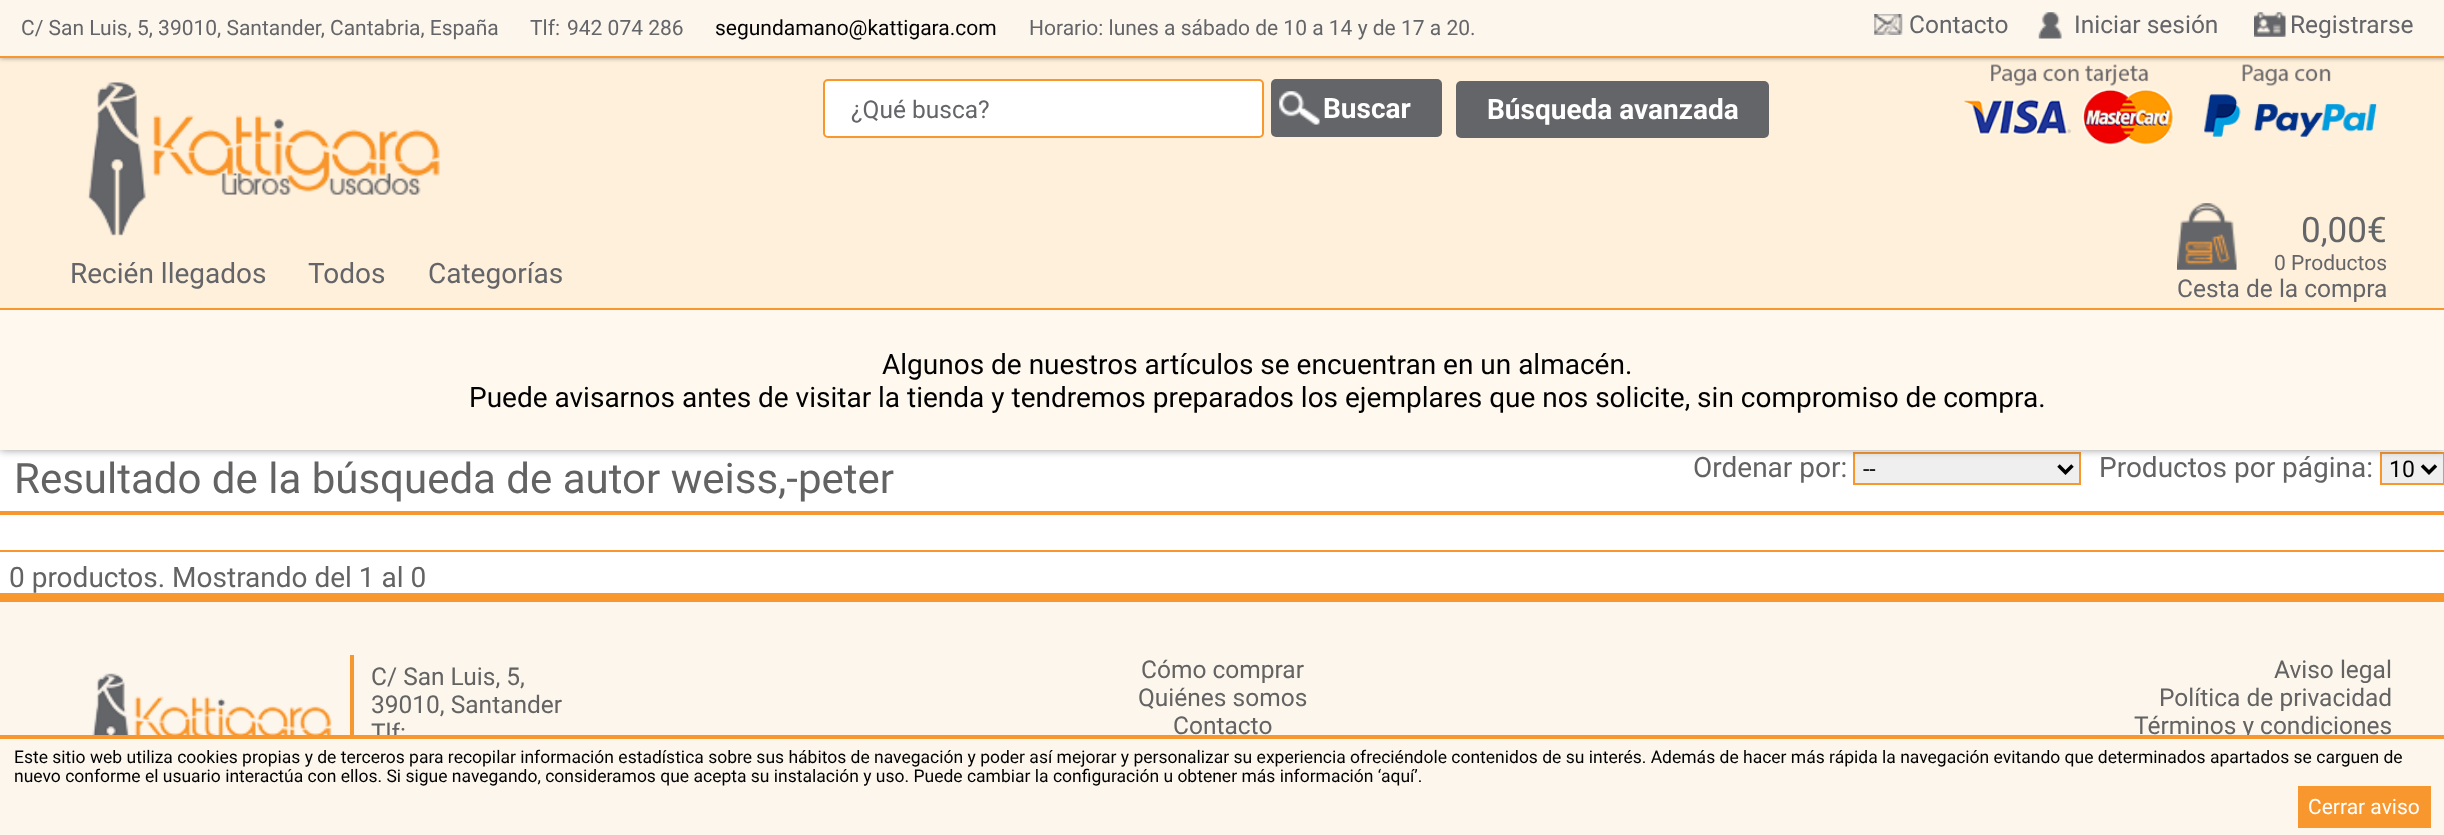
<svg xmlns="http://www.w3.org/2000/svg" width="2444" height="835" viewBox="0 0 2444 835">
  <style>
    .t1 { font: 21px Roboto; fill: #646569; }
    .t2 { font: 21px Roboto; fill: #000; }
    .t3 { font: 24.5px Roboto; fill: #646569; }
    .t4 { font: bold 28px Roboto; fill: #fff; }
    .t5 { font: 28px Roboto; fill: #646569; }
    .t6 { font: 35px Roboto; fill: #646569; }
    .t7 { font: 28px Roboto; fill: #000; }
    .t8 { font: 42px Roboto; fill: #636363; }
    .t9 { font: 28px Roboto; fill: #636363; }
    .t10 { font: 23px Roboto; fill: #000; }
    .t11 { font: 24.5px Roboto; fill: #636363; }
    .t12 { font: 17.5px Roboto; fill: #000; }
    .t13 { font: 21px Roboto; fill: #fff; }
  </style>
  <rect width="100%" height="100%" fill="#fff"/>
  <rect x="1854" y="453" width="226" height="31" fill="#efefef" stroke="#f8972e" stroke-width="2"/>
  <path d="M2058.5 465.5L2065.5 472.5L2072.5 465.5" fill="none" stroke="#000" stroke-width="3.5"/>
  <rect x="2381" y="453" width="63" height="31" fill="#efefef" stroke="#f8972e" stroke-width="2"/>
  <path d="M2422 465.5L2429 472.5L2436 465.5" fill="none" stroke="#000" stroke-width="3.5"/>
  <rect x="0" y="-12" width="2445" height="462" fill="#32323280" filter="blur(4.5px)"/>
  <rect x="0" y="58" width="2444" height="250" fill="#fff0db"/>
  <image x="1962" y="64" width="212" height="82" href="images/6.png"/>
  <image x="2204" y="64" width="173" height="82" href="images/7.png"/>
  <rect x="0" y="0" width="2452" height="58" fill="#32323280" filter="blur(2.5px)"/>
  <rect x="0" y="0" width="2444" height="56" fill="#fdf6ed"/>
  <rect x="0" y="56" width="2444" height="2" fill="#f8972e"/>
  <text x="21" y="35" class="t1">C/ San Luis, 5, 39010, Santander, Cantabria, España</text>
  <text x="530" y="35" class="t1">Tlf:</text>
  <text x="567" y="35" class="t1">942 074 286</text>
  <text x="715" y="35" class="t2">segundamano@kattigara.com</text>
  <text x="1029" y="35" class="t1">Horario: lunes a sábado de 10 a 14 y de 17 a 20.</text>
  <image x="1874" y="14" width="29" height="21" href="images/1.png"/>
  <text x="1909" y="33" class="t3">Contacto</text>
  <image x="2038" y="12" width="24" height="27" href="images/2.png"/>
  <text x="2074" y="33" class="t3">Iniciar sesión</text>
  <image x="2254" y="12" width="32" height="25" href="images/3.png"/>
  <text x="2290" y="33" class="t3">Registrarse</text>
  <image x="87" y="82" width="353" height="154" href="images/4.png"/>
  <rect x="824" y="80" width="439" height="57" rx="4" fill="#fff" stroke="#f8972e" stroke-width="2"/>
  <text x="851" y="118" class="t3">¿Qué busca?</text>
  <rect x="1271" y="79" width="171" height="58" rx="5" fill="#646569"/>
  <image x="1279" y="91" width="41" height="34" href="images/5.png"/>
  <text x="1323" y="118" class="t4">Buscar</text>
  <rect x="1456" y="81" width="313" height="57" rx="5" fill="#646569"/>
  <text x="1487" y="119" class="t4">Búsqueda avanzada</text>
  <text x="70" y="283" class="t5">Recién llegados</text>
  <text x="308" y="283" class="t5">Todos</text>
  <text x="428" y="283" class="t5">Categorías</text>
  <image x="2177" y="203" width="60" height="67" href="images/8.png"/>
  <text x="2301" y="242" class="t6">0,00€</text>
  <text x="2274" y="270" class="t1">0 Productos</text>
  <text x="2177" y="297" class="t3">Cesta de la compra</text>
  <rect x="0" y="310" width="2444" height="140" fill="#fff8ee"/>
  <rect x="0" y="308" width="2444" height="2" fill="#f8972e"/>
  <text x="882" y="374" class="t7">Algunos de nuestros artículos se encuentran en un almacén.</text>
  <text x="469" y="407" class="t7">Puede avisarnos antes de visitar la tienda y tendremos preparados los ejemplares que nos solicite, sin compromiso de compra.</text>
  <rect x="0" y="511" width="2444" height="4" fill="#f8972e"/>
  <text x="14" y="493" class="t8">Resultado de la búsqueda de autor weiss,-peter</text>
  <text x="1693" y="477" class="t9">Ordenar por:</text>
  <text x="1863" y="477" class="t10">--</text>
  <text x="2099" y="477" class="t9">Productos por página:</text>
  <text x="2389" y="477" class="t10">10</text>
  <rect x="0" y="550" width="2444" height="2" fill="#f8972e"/>
  <text x="9" y="587" class="t9">0 productos. Mostrando del 1 al 0</text>
  <rect x="0" y="602" width="2444" height="133" fill="#fdf6ec"/>
  <rect x="0" y="593" width="2444" height="9" fill="#f8972e"/>
  <image x="92" y="673" width="240" height="62" href="images/9.png"/>
  <rect x="350" y="655" width="4" height="80" fill="#f8972e"/>
  <text x="371" y="685" class="t11">C/ San Luis, 5,</text>
  <text x="371" y="713" class="t11">39010, Santander</text>
  <text x="371" y="741" class="t11">Tlf:</text>
  <text x="1141" y="678" class="t11">Cómo comprar</text>
  <text x="1138" y="706" class="t11">Quiénes somos</text>
  <text x="1173" y="734" class="t11">Contacto</text>
  <text x="2274" y="678" class="t11">Aviso legal</text>
  <text x="2159" y="706" class="t11">Política de privacidad</text>
  <text x="2134" y="734" class="t11">Términos y condiciones</text>
  <rect x="0" y="739" width="2444" height="96" fill="#fdf6ed"/>
  <rect x="0" y="735" width="2444" height="4" fill="#f8972e"/>
  <text x="14" y="763" class="t12">Este sitio web utiliza cookies propias y de terceros para recopilar información estadística sobre sus hábitos de navegación y poder así mejorar y personalizar su experiencia ofreciéndole contenidos de su interés. Además de hacer más rápida la navegación evitando que determinados apartados se carguen de</text>
  <text x="14" y="782" class="t12">nuevo conforme el usuario interactúa con ellos. Si sigue navegando, consideramos que acepta su instalación y uso. Puede cambiar la configuración u obtener más información ‘aquí’.</text>
  <rect x="2298" y="786" width="133" height="42" fill="#f8972e"/>
  <text x="2308" y="814" class="t13">Cerrar aviso</text>
</svg>
